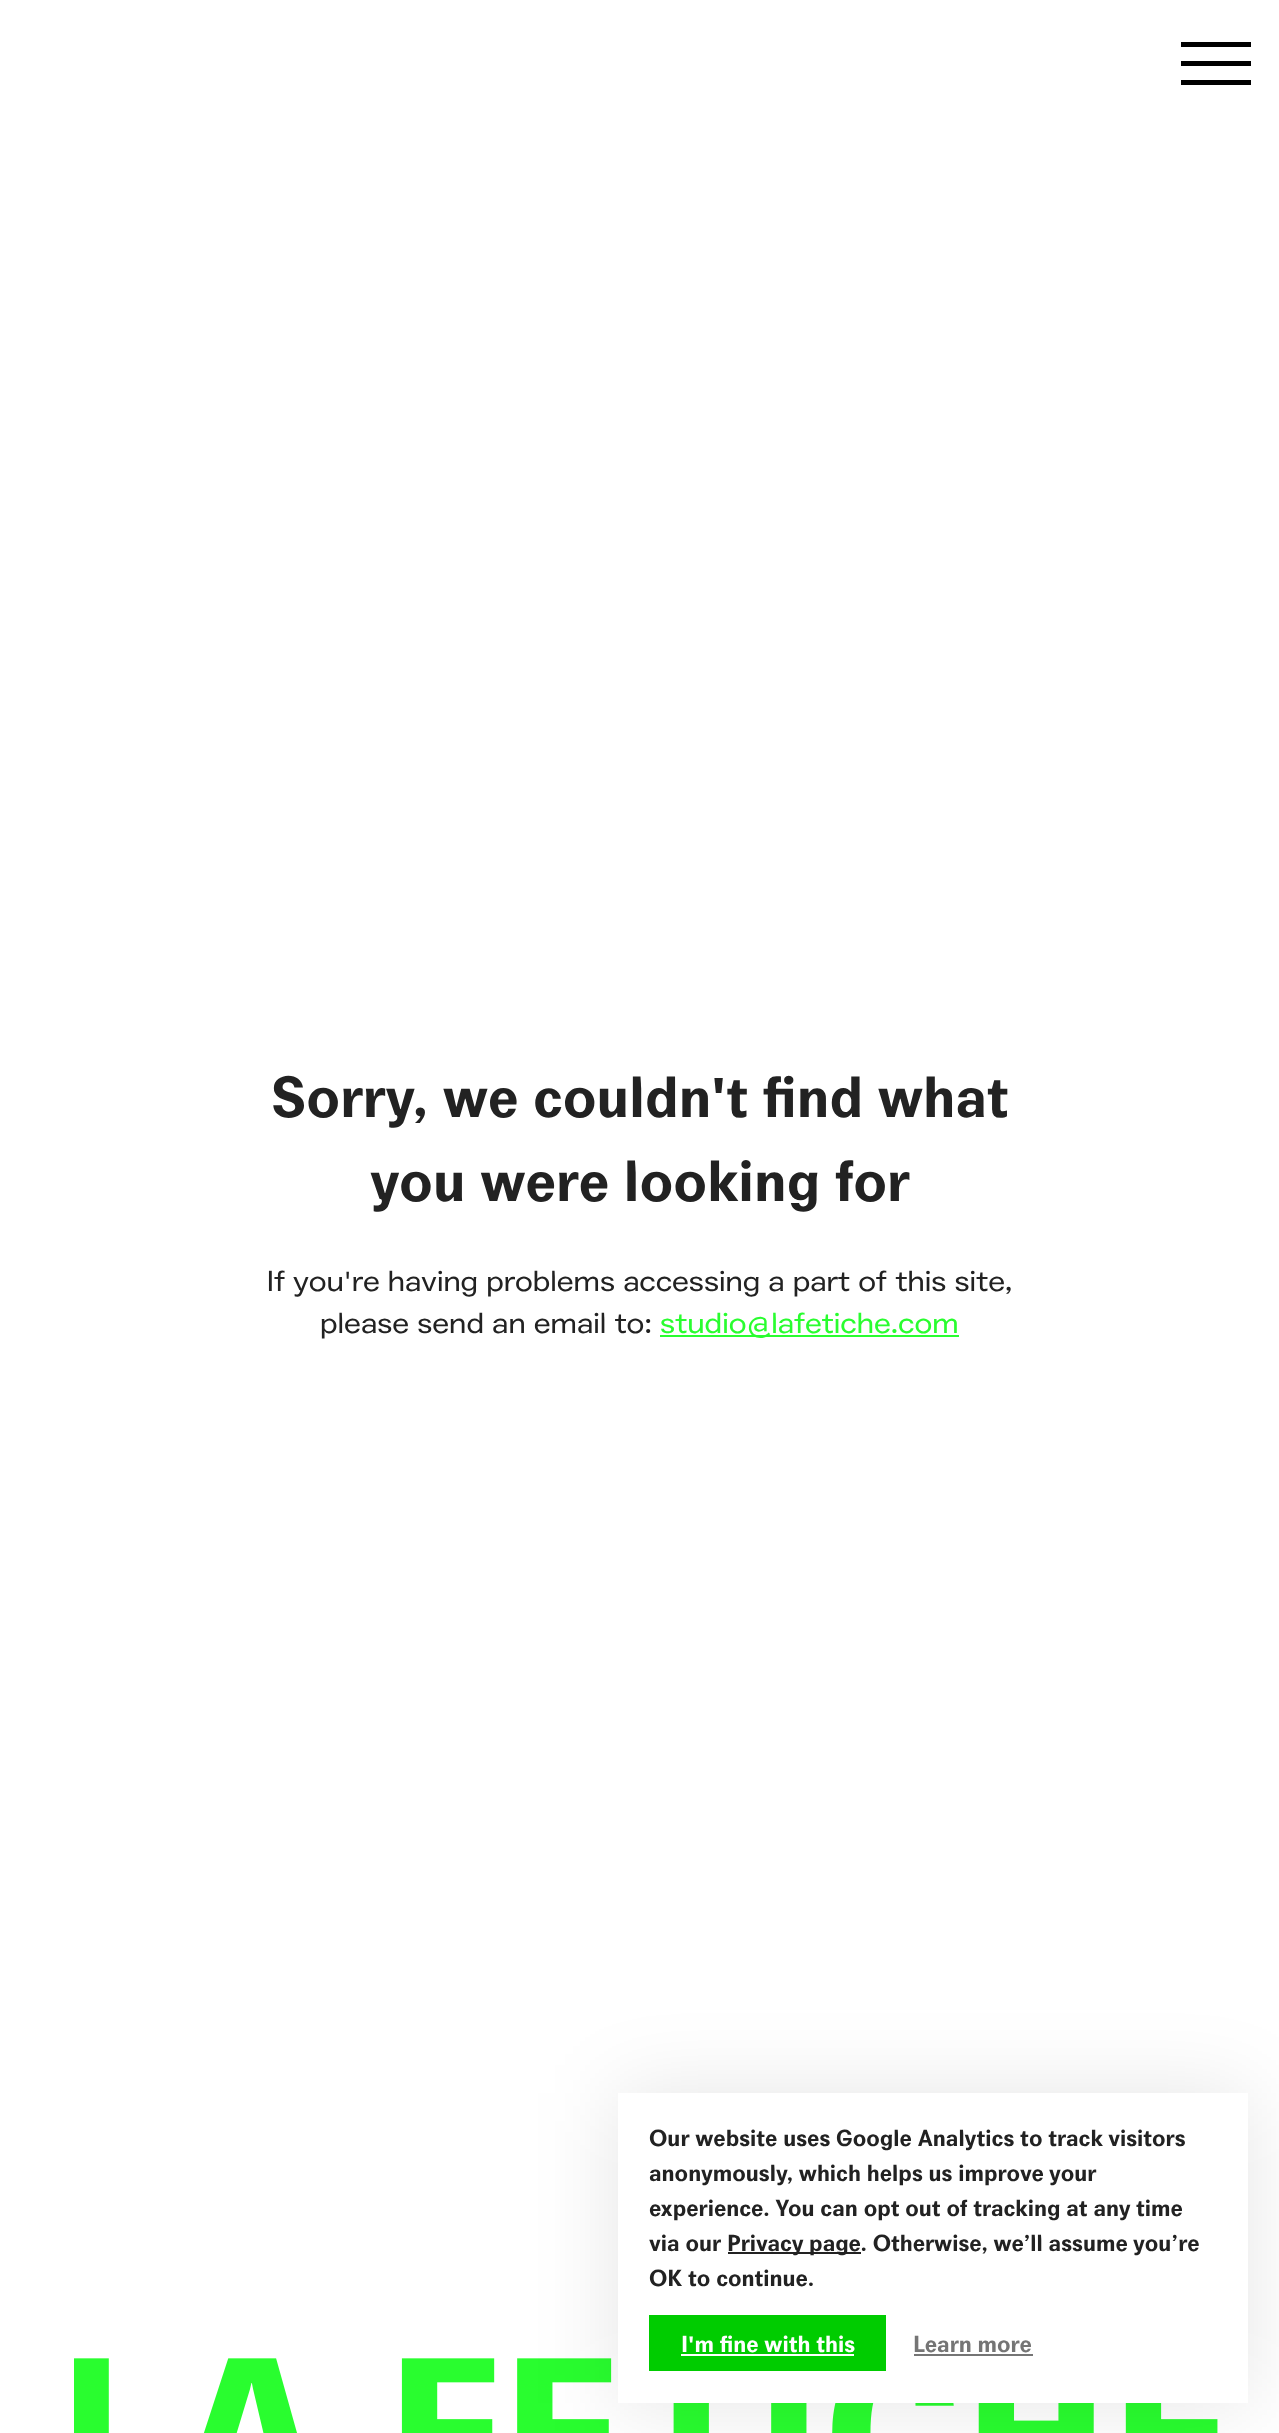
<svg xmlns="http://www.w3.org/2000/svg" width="1279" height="2433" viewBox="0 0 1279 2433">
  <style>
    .t1 { font: bold 56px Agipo; fill: #222; }
    .t2 { font: 28px Agipo; fill: #222; }
    .t3 { font: 28px Agipo; fill: #29fd2f; }
    .t4 { font: bold 22.4px Agipo; fill: #222; }
    .t5 { font: bold 22.4px Agipo; fill: #fff; }
    .t6 { font: bold 22.4px Agipo; fill: #757575; }
  </style>
  <rect width="100%" height="100%" fill="#fff"/>
  <path d="M1181 42H1251V47H1181ZM1181 61H1251V66H1181ZM1251 80V85H1181V80Z" fill="#000"/>
  <text x="271" y="1117" class="t1">Sorry, we couldn't find what</text>
  <text x="370" y="1201" class="t1">you were looking for</text>
  <text x="267" y="1291" class="t2">If you're having problems accessing a part of this site,</text>
  <text x="320" y="1333" class="t2">please send an email to:</text>
  <rect x="660" y="1335" width="299" height="2" fill="#29fd2f"/>
  <text x="660" y="1333" class="t3">studio@lafetiche.com</text>
  <image x="74" y="2358" width="1144" height="75" href="images/1.png"/>
  <rect x="618" y="2093" width="630" height="310" fill="#0000001a" filter="blur(42px)"/>
  <rect x="618" y="2093" width="630" height="310" fill="#fff"/>
  <text x="649" y="2146" class="t4">Our website uses Google Analytics to track visitors</text>
  <text x="649" y="2181" class="t4">anonymously, which helps us improve your</text>
  <text x="649" y="2216" class="t4">experience. You can opt out of tracking at any time</text>
  <text x="649" y="2251" class="t4">via our</text>
  <rect x="728" y="2252" width="133" height="2" fill="#222"/>
  <text x="727" y="2251" class="t4">Privacy page. Otherwise, we’ll assume you’re</text>
  <text x="649" y="2286" class="t4">OK to continue.</text>
  <rect x="649" y="2315" width="237" height="56" fill="#0c0"/>
  <text x="681" y="2352" class="t5">I'm fine with this</text>
  <rect x="681" y="2354" width="173" height="2" fill="#fff"/>
  <text x="913" y="2352" class="t6">Learn more</text>
  <rect x="914" y="2354" width="119" height="2" fill="#757575"/>
</svg>
